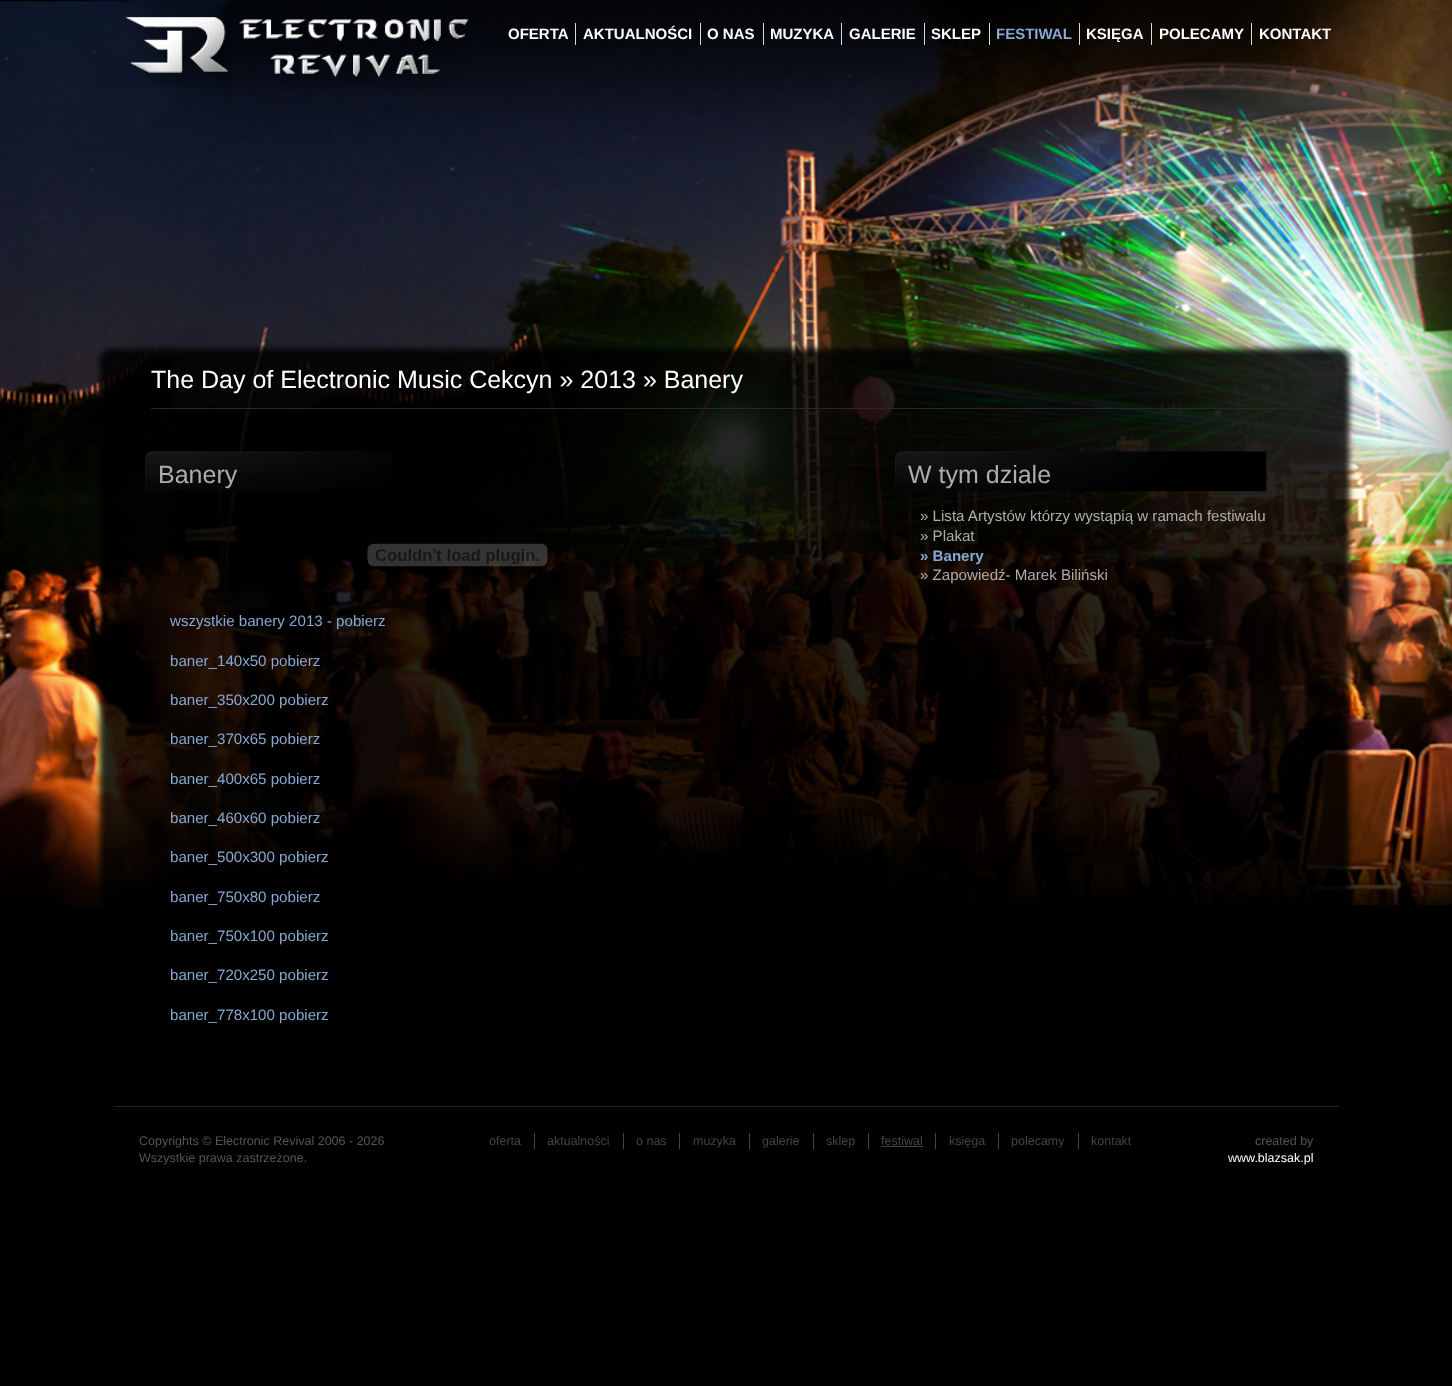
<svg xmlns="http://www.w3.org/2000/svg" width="1452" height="1386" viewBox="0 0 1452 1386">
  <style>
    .t1 { font: bold 15px Liberation Sans; fill: #fff; }
    .t2 { font: bold 15px Liberation Sans; fill: #85a9d2; }
    .t3 { font: 25px Liberation Sans; fill: #fff; }
    .t4 { font: 25px Liberation Sans; fill: #adadad; }
    .t5 { font: 15.1px Liberation Sans; fill: #85a9d2; }
    .t6 { font: 15.1px Liberation Sans; fill: #adadad; }
    .t7 { font: bold 15.1px Liberation Sans; fill: #85a9d2; }
    .t8 { font: 12.5px Liberation Sans; fill: #555; }
    .t9 { font: 12.5px Liberation Sans; fill: #444; }
    .t10 { font: 12.5px Liberation Sans; fill: #fff; }
  </style>
  <rect width="100%" height="100%" fill="#000"/>
  <image x="0" y="0" width="1452" height="906" href="images/1.png"/>
  <image x="262" y="330" width="6" height="14" href="images/2.png"/>
  <image x="126" y="17" width="343" height="72" href="images/3.png"/>
  <text x="508" y="39" class="t1">OFERTA</text>
  <text x="583" y="39" class="t1">AKTUALNOŚCI</text>
  <rect x="575" y="23" width="1" height="22" fill="#dadada"/>
  <text x="707" y="39" class="t1">O NAS</text>
  <rect x="700" y="23" width="1" height="22" fill="#dadada"/>
  <text x="770" y="39" class="t1">MUZYKA</text>
  <rect x="763" y="23" width="1" height="22" fill="#dadada"/>
  <text x="849" y="39" class="t1">GALERIE</text>
  <rect x="841" y="23" width="1" height="22" fill="#dadada"/>
  <text x="931" y="39" class="t1">SKLEP</text>
  <rect x="924" y="23" width="1" height="22" fill="#dadada"/>
  <text x="996" y="39" class="t2">FESTIWAL</text>
  <rect x="989" y="23" width="1" height="22" fill="#dadada"/>
  <text x="1086" y="39" class="t1">KSIĘGA</text>
  <rect x="1079" y="23" width="1" height="22" fill="#dadada"/>
  <text x="1159" y="39" class="t1">POLECAMY</text>
  <rect x="1151" y="23" width="1" height="22" fill="#dadada"/>
  <text x="1259" y="39" class="t1">KONTAKT</text>
  <rect x="1251" y="23" width="1" height="22" fill="#dadada"/>
  <rect x="151" y="408" width="1150" height="1" fill="#252729"/>
  <text x="151" y="388" class="t3">The Day of Electronic Music Cekcyn » 2013 » Banery</text>
  <image x="145" y="451" width="247" height="40" href="images/4.png"/>
  <text x="158" y="483" class="t4">Banery</text>
  <image x="367" y="543" width="181" height="24" href="images/5.png"/>
  <text x="170" y="626" class="t5">wszystkie banery 2013 - pobierz</text>
  <text x="170" y="666" class="t5">baner_140x50 pobierz</text>
  <text x="170" y="705" class="t5">baner_350x200 pobierz</text>
  <text x="170" y="744" class="t5">baner_370x65 pobierz</text>
  <text x="170" y="784" class="t5">baner_400x65 pobierz</text>
  <text x="170" y="823" class="t5">baner_460x60 pobierz</text>
  <text x="170" y="862" class="t5">baner_500x300 pobierz</text>
  <text x="170" y="902" class="t5">baner_750x80 pobierz</text>
  <text x="170" y="941" class="t5">baner_750x100 pobierz</text>
  <text x="170" y="980" class="t5">baner_720x250 pobierz</text>
  <text x="170" y="1020" class="t5">baner_778x100 pobierz</text>
  <image x="895" y="451" width="372" height="41" href="images/6.png"/>
  <text x="908" y="483" class="t4">W tym dziale</text>
  <text x="920" y="521" class="t6">» Lista Artystów którzy wystąpią w ramach festiwalu</text>
  <text x="920" y="541" class="t6">» Plakat</text>
  <text x="920" y="561" class="t7">» Banery</text>
  <text x="920" y="580" class="t6">» Zapowiedź- Marek Biliński</text>
  <rect x="114" y="1106" width="1225" height="1" fill="#242729"/>
  <text x="139" y="1145" class="t8">Copyrights © Electronic Revival 2006 - 2026</text>
  <text x="139" y="1162" class="t8">Wszystkie prawa zastrzeżone.</text>
  <text x="489" y="1145" class="t9">oferta</text>
  <rect x="534" y="1133" width="1" height="16" fill="#444"/>
  <text x="547" y="1145" class="t9">aktualności</text>
  <rect x="623" y="1133" width="1" height="16" fill="#444"/>
  <text x="636" y="1145" class="t9">o nas</text>
  <rect x="679" y="1133" width="1" height="16" fill="#444"/>
  <text x="693" y="1145" class="t9">muzyka</text>
  <rect x="749" y="1133" width="1" height="16" fill="#444"/>
  <text x="762" y="1145" class="t9">galerie</text>
  <rect x="813" y="1133" width="1" height="16" fill="#444"/>
  <text x="826" y="1145" class="t9">sklep</text>
  <rect x="868" y="1133" width="1" height="16" fill="#444"/>
  <text x="881" y="1145" class="t9">festiwal</text>
  <rect x="881" y="1146" width="42" height="1" fill="#444"/>
  <rect x="935" y="1133" width="1" height="16" fill="#444"/>
  <text x="949" y="1145" class="t9">księga</text>
  <rect x="998" y="1133" width="1" height="16" fill="#444"/>
  <text x="1011" y="1145" class="t9">polecamy</text>
  <rect x="1078" y="1133" width="1" height="16" fill="#444"/>
  <text x="1091" y="1145" class="t9">kontakt</text>
  <text x="1255" y="1145" class="t8">created by</text>
  <text x="1228" y="1162" class="t10">www.blazsak.pl</text>
</svg>
